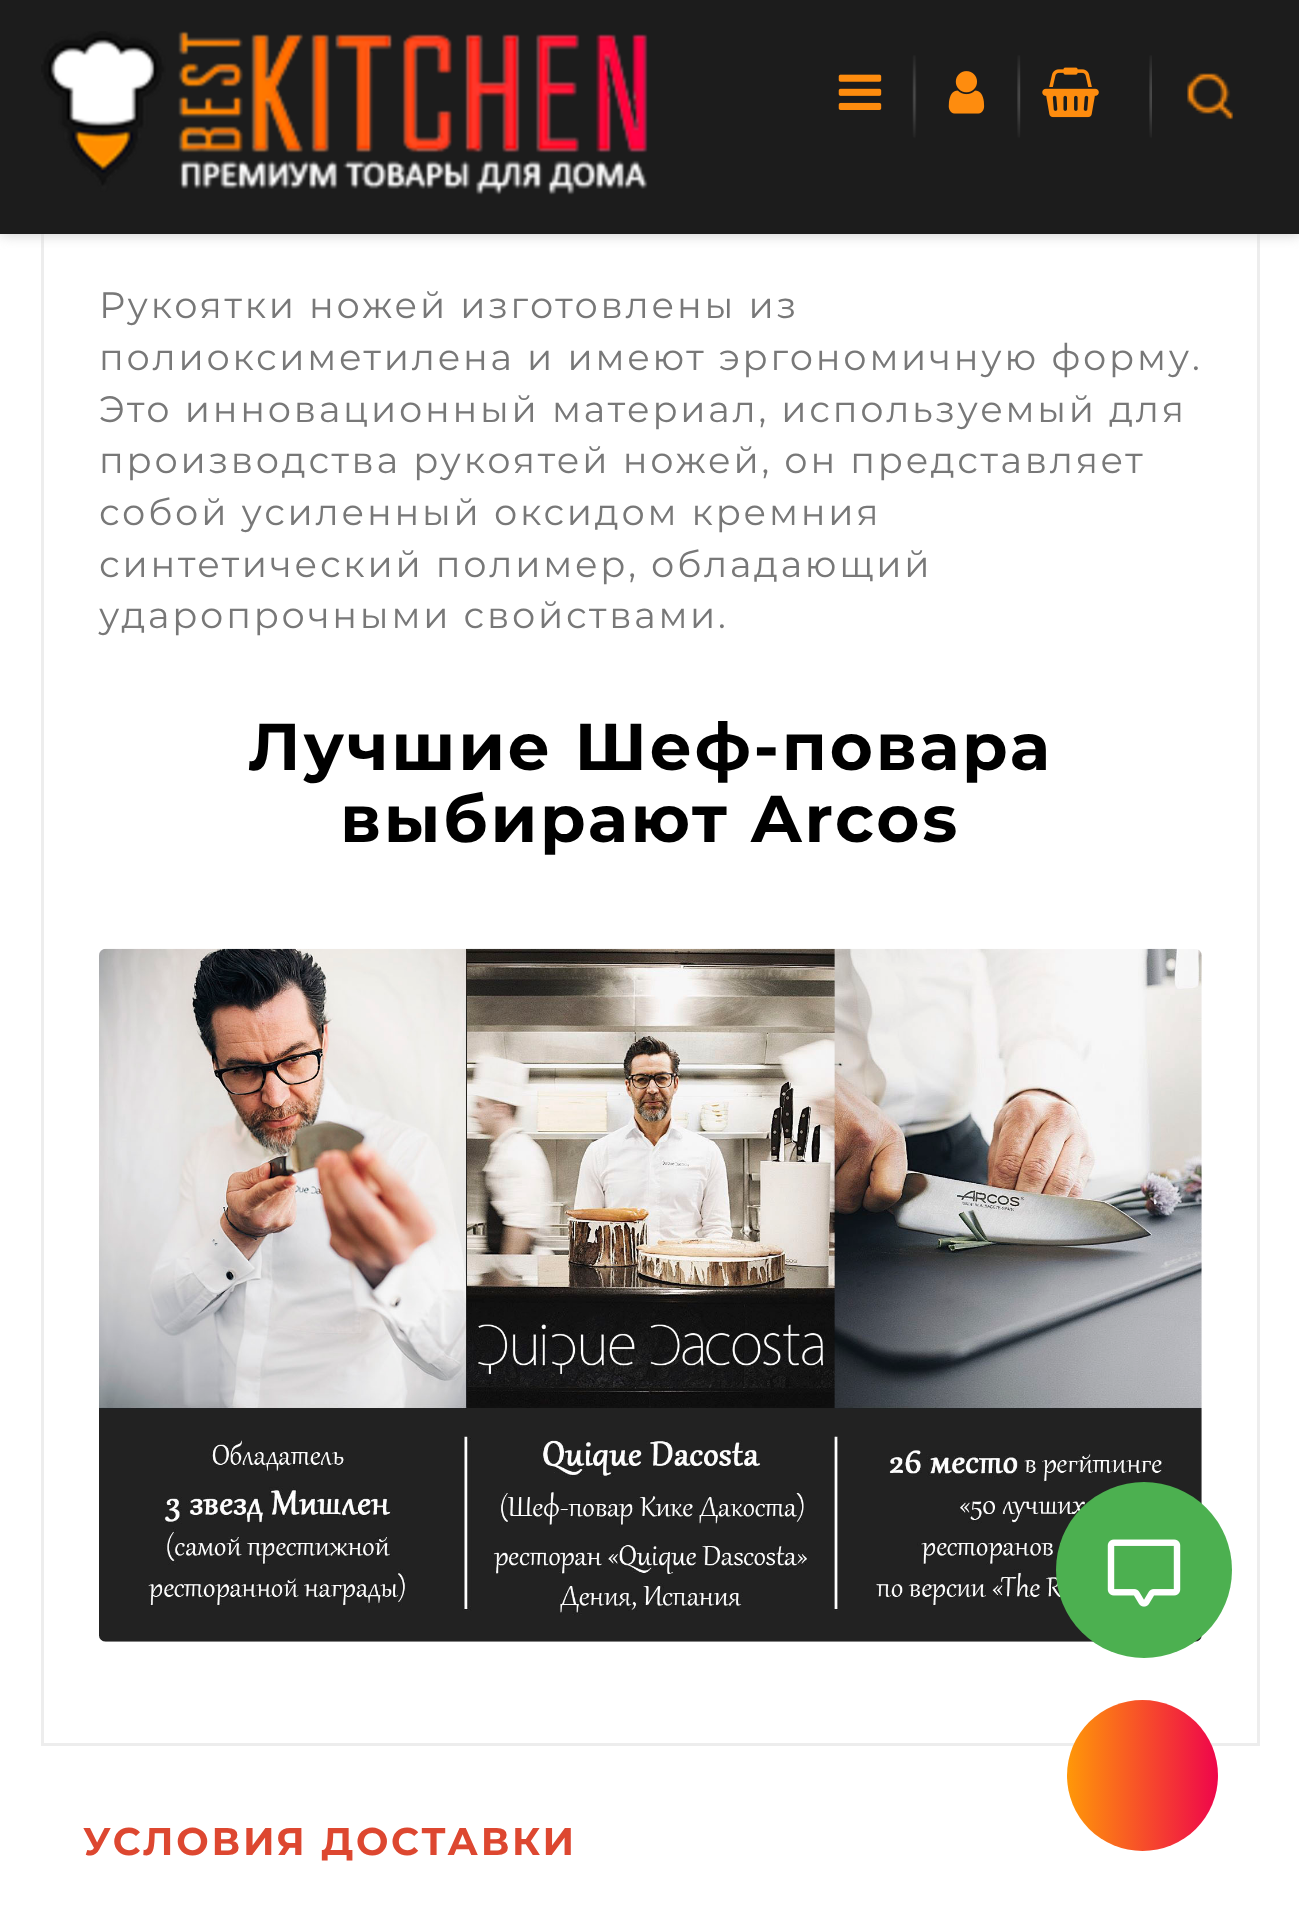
<svg xmlns="http://www.w3.org/2000/svg" width="1299" height="1931" viewBox="0 0 1299 1931">
  <style>
    .t1 { font: 36.7px Montserrat; letter-spacing: 2.75px; fill: #787878; }
    .t2 { font: bold 66px Montserrat; letter-spacing: 2.75px; fill: #000; }
    .t3 { font: bold 38.5px Montserrat; letter-spacing: 2.75px; fill: #dd4730; }
  </style>
  <defs>
    <linearGradient id="g1" gradientUnits="userSpaceOnUse" x1="1067" y1="1775" x2="1218" y2="1775"><stop offset="0" stop-color="#ff9808"/><stop offset="1" stop-color="#ef054b"/></linearGradient>
  </defs>
  <rect width="100%" height="100%" fill="#fff"/>
  <rect x="42.5" y="-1.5" width="1216" height="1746" fill="none" stroke="#ededed" stroke-width="3"/>
  <rect x="0" y="0" width="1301" height="234" fill="#c8c8c8" filter="blur(7px)"/>
  <rect x="0" y="0" width="1299" height="234" fill="#1c1c1c"/>
  <image x="41" y="31" width="607" height="164" href="images/1.png"/>
  <image x="838" y="74" width="44" height="36" href="images/2.png"/>
  <image x="912" y="55" width="5" height="83" href="images/3.png"/>
  <image x="948" y="71" width="37" height="43" href="images/4.png"/>
  <image x="1017" y="55" width="4" height="83" href="images/5.png"/>
  <image x="1042" y="67" width="57" height="51" href="images/6.png"/>
  <image x="1149" y="55" width="3" height="83" href="images/7.png"/>
  <image x="1187" y="73" width="46" height="47" href="images/8.png"/>
  <text x="99" y="318" class="t1">Рукоятки ножей изготовлены из</text>
  <text x="99" y="370" class="t1">полиоксиметилена и имеют эргономичную форму.</text>
  <text x="99" y="422" class="t1">Это инновационный материал, используемый для</text>
  <text x="99" y="473" class="t1">производства рукоятей ножей, он представляет</text>
  <text x="99" y="525" class="t1">собой усиленный оксидом кремния</text>
  <text x="99" y="577" class="t1">синтетический полимер, обладающий</text>
  <text x="99" y="628" class="t1">ударопрочными свойствами.</text>
  <text x="248" y="770" class="t2">Лучшие Шеф-повара</text>
  <text x="340" y="842" class="t2">выбирают Arcos</text>
  <image x="99" y="948" width="1103" height="694" href="images/9.png"/>
  <text x="83" y="1855" class="t3">УСЛОВИЯ ДОСТАВКИ</text>
  <circle cx="1144" cy="1570" r="88" fill="#4cb050"/>
  <image x="1107" y="1539" width="74" height="68" href="images/10.png"/>
  <circle cx="1142.5" cy="1775.5" r="75.5" fill="url(#g1)"/>
</svg>
